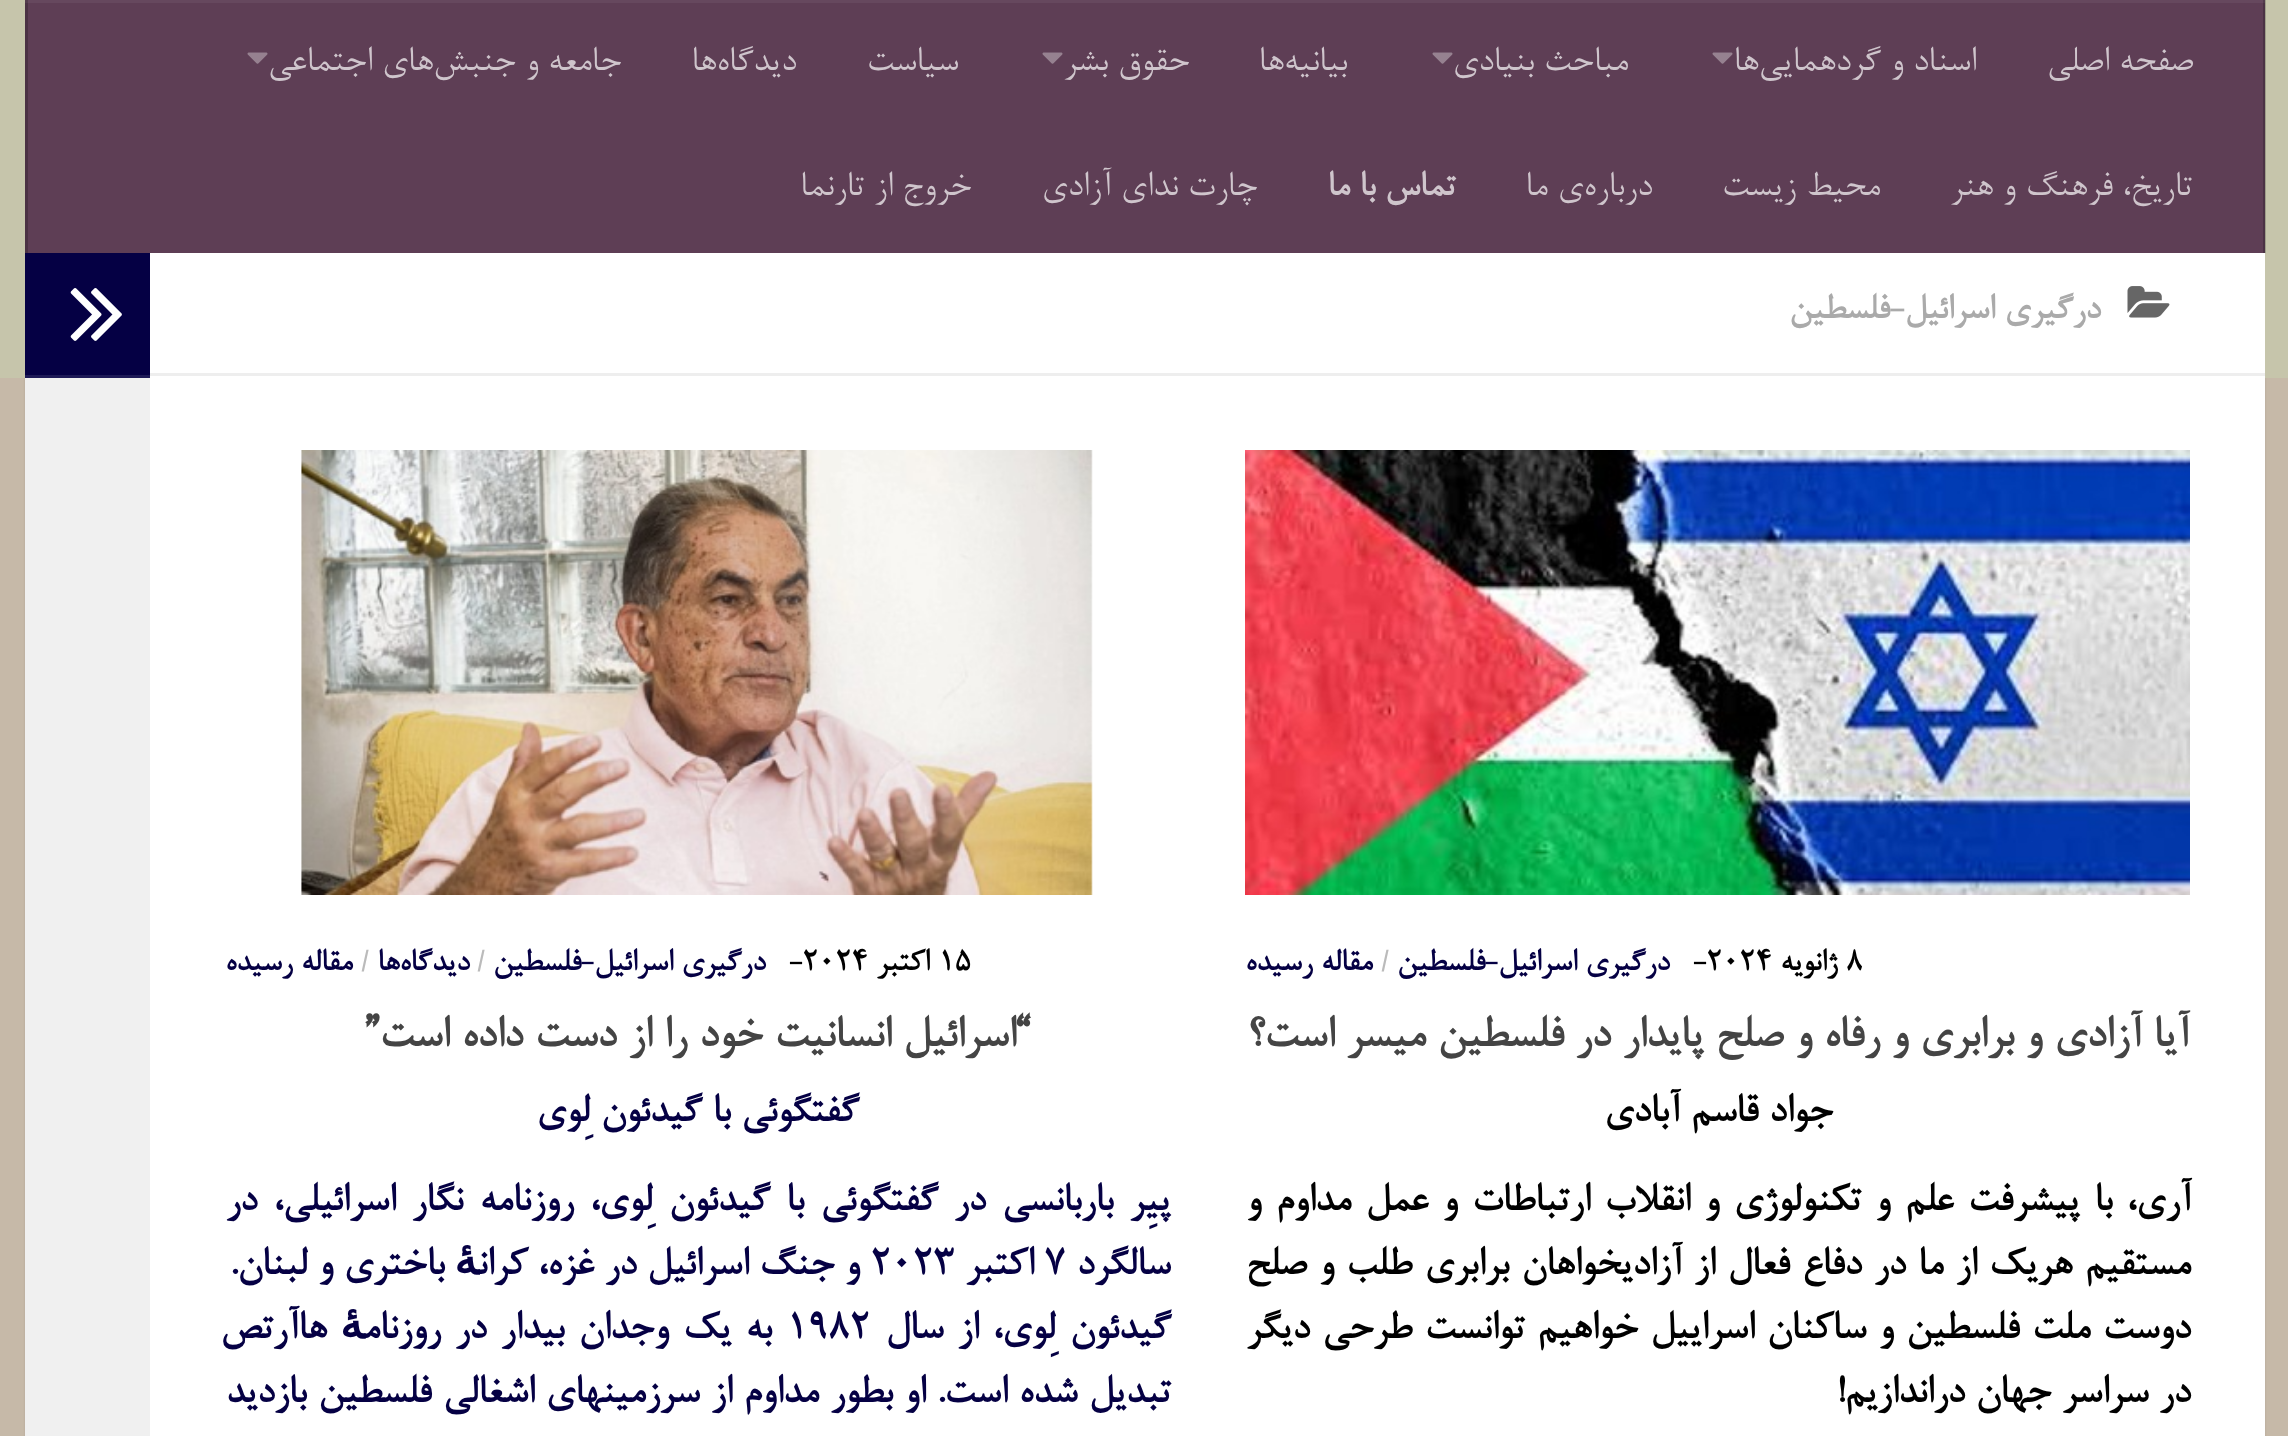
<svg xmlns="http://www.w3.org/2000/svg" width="2288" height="1436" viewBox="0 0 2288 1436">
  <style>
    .t1 { font: 40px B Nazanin; direction: rtl; fill: #cfc5cc; }
    .t2 { font: bold 40px B Nazanin; direction: rtl; fill: #cfc5cc; }
    .t3 { font: bold 40px B Nazanin; direction: rtl; fill: #aaa; }
    .t4 { font: bold 35px B Nazanin; fill: #000; }
    .t5 { font: bold 35px B Nazanin; direction: rtl; fill: #000; }
    .t6 { font: bold 35px B Nazanin; direction: rtl; fill: #050044; }
    .t7 { font: bold 35px B Nazanin; fill: #bbb; }
    .t8 { font: bold 50px B Nazanin; direction: rtl; fill: #444; }
    .t9 { font: bold 45px B Nazanin; direction: rtl; fill: #000; }
    .t10 { font: bold 50px B Nazanin; fill: #444; }
    .t11 { font: bold 45px B Nazanin; direction: rtl; fill: #050044; }
    .t12 { font: bold 45px B Nazanin; fill: #050044; }
  </style>
  <rect width="100%" height="100%" fill="#c6b9a8"/>
  <rect x="25" y="255" width="2240" height="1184" fill="#0000001a" filter="blur(1px)"/>
  <rect x="0" y="0" width="2288" height="378" fill="#c6c5ab"/>
  <rect x="2265" y="0" width="1" height="253" fill="#9e9e89"/>
  <rect x="28" y="3" width="2235" height="250" fill="#5e3e55"/>
  <rect x="25" y="0" width="2240" height="3" fill="#66485e"/>
  <rect x="2263" y="0" width="2" height="253" fill="#4b3244"/>
  <rect x="2263" y="0" width="2" height="3" fill="#543c4d"/>
  <rect x="25" y="0" width="3" height="253" fill="#4b3244"/>
  <rect x="25" y="0" width="3" height="3" fill="#543c4d"/>
  <text x="2193" y="70" class="t1">صفحه اصلی</text>
  <text x="1976" y="70" class="t1">اسناد و گردهمایی‌ها</text>
  <image x="1712" y="52" width="21" height="12" href="images/1.png"/>
  <text x="1628" y="70" class="t1">مباحث بنیادی</text>
  <image x="1432" y="52" width="21" height="12" href="images/1.png"/>
  <text x="1347" y="70" class="t1">بیانیه‌ها</text>
  <text x="1189" y="70" class="t1">حقوق بشر</text>
  <image x="1042" y="52" width="21" height="12" href="images/1.png"/>
  <text x="958" y="70" class="t1">سیاست</text>
  <text x="796" y="70" class="t1">دیدگاه‌ها</text>
  <text x="621" y="70" class="t1">جامعه و جنبش‌های اجتماعی</text>
  <image x="247" y="52" width="21" height="12" href="images/1.png"/>
  <text x="2192" y="195" class="t1">تاریخ، فرهنگ و هنر</text>
  <text x="1880" y="195" class="t1">محیط زیست</text>
  <text x="1652" y="195" class="t1">درباره‌ی ما</text>
  <text x="1455" y="195" class="t2">تماس با ما</text>
  <text x="1257" y="195" class="t1">چارت ندای آزادی</text>
  <text x="971" y="195" class="t1">خروج از تارنما</text>
  <rect x="150" y="253" width="2115" height="1183" fill="#fff"/>
  <rect x="25" y="378" width="125" height="1058" fill="#f0f0f0"/>
  <rect x="150" y="373" width="2115" height="3" fill="#eee"/>
  <image x="2127" y="286" width="43" height="32" href="images/2.png"/>
  <text x="2100" y="318" class="t3">درگیری اسرائیل-فلسطین</text>
  <image x="1245" y="450" width="945" height="445" href="images/3.png"/>
  <text x="1846" y="970" class="t4">8</text>
  <text x="1837" y="970" class="t5">ژانویه</text>
  <text x="1693" y="970" class="t4">-2024</text>
  <text x="1669" y="970" class="t6">درگیری اسرائیل-فلسطین</text>
  <text x="1381" y="970" class="t7">/</text>
  <text x="1372" y="970" class="t6">مقاله‌ رسیده</text>
  <text x="2188" y="1046" class="t8">آیا آزادی و برابری و رفاه و صلح پایدار در فلسطین میسر است؟</text>
  <text x="1832" y="1121" class="t9">جواد قاسم آبادی</text>
  <text x="2190" y="1210" word-spacing="3.75" class="t9">آری، با پیشرفت علم و تکنولوژی و انقلاب ارتباطات و عمل مداوم و</text>
  <text x="2190" y="1274" word-spacing="1.6" class="t9">مستقیم هریک از ما در دفاع فعال از آزادیخواهان برابری طلب و صلح</text>
  <text x="2190" y="1338" word-spacing="1.75" class="t9">دوست ملت فلسطین و ساکنان اسراییل خواهیم توانست طرحی دیگر</text>
  <text x="2190" y="1402" class="t9">در سراسر جهان دراندازیم!</text>
  <image x="301" y="450" width="792" height="445" href="images/4.png"/>
  <text x="938" y="970" class="t4">15</text>
  <text x="929" y="970" class="t5">اکتبر</text>
  <text x="789" y="970" class="t4">-2024</text>
  <text x="765" y="970" class="t6">درگیری اسرائیل-فلسطین</text>
  <text x="477" y="970" class="t7">/</text>
  <text x="469" y="970" class="t6">دیدگاه‌ها</text>
  <text x="361" y="970" class="t7">/</text>
  <text x="352" y="970" class="t6">مقاله‌ رسیده</text>
  <text x="1015" y="1046" class="t10">“</text>
  <text x="1015" y="1046" class="t8">اسرائیل انسانیت خود را از دست داده است</text>
  <text x="364" y="1046" class="t10">”</text>
  <text x="858" y="1121" class="t11">گفتگوئی با گیدئون لِوی</text>
  <text x="1170" y="1210" word-spacing="5.5" class="t11">پیِر باربانسی در گفتگوئی با گیدئون لِوی، روزنامه نگار اسرائیلی، در</text>
  <text x="1170" y="1274" class="t11">سالگرد</text>
  <text x="1044" y="1274" class="t12">۷</text>
  <text x="1033" y="1274" class="t11">اکتبر</text>
  <text x="870" y="1274" class="t12">۲۰۲۳</text>
  <text x="859" y="1274" class="t11">و جنگ اسرائیل در غزه، کرانۀ باختری و لبنان.</text>
  <text x="1170" y="1338" word-spacing="3.5" class="t11">گیدئون لِوی، از سال</text>
  <text x="786" y="1338" class="t12">۱۹۸۲</text>
  <text x="771" y="1338" word-spacing="3.5" class="t11">به یک وجدان بیدار در روزنامۀ هاآرتص</text>
  <text x="1170" y="1402" word-spacing="0.75" class="t11">تبدیل شده است. او بطور مداوم از سرزمینهای اشغالی فلسطین بازدید</text>
  <rect x="25" y="253" width="125" height="122" fill="#050044"/>
  <rect x="25" y="375" width="125" height="3" fill="#1e1a57"/>
  <image x="70" y="288" width="52" height="53" href="images/5.png"/>
</svg>
